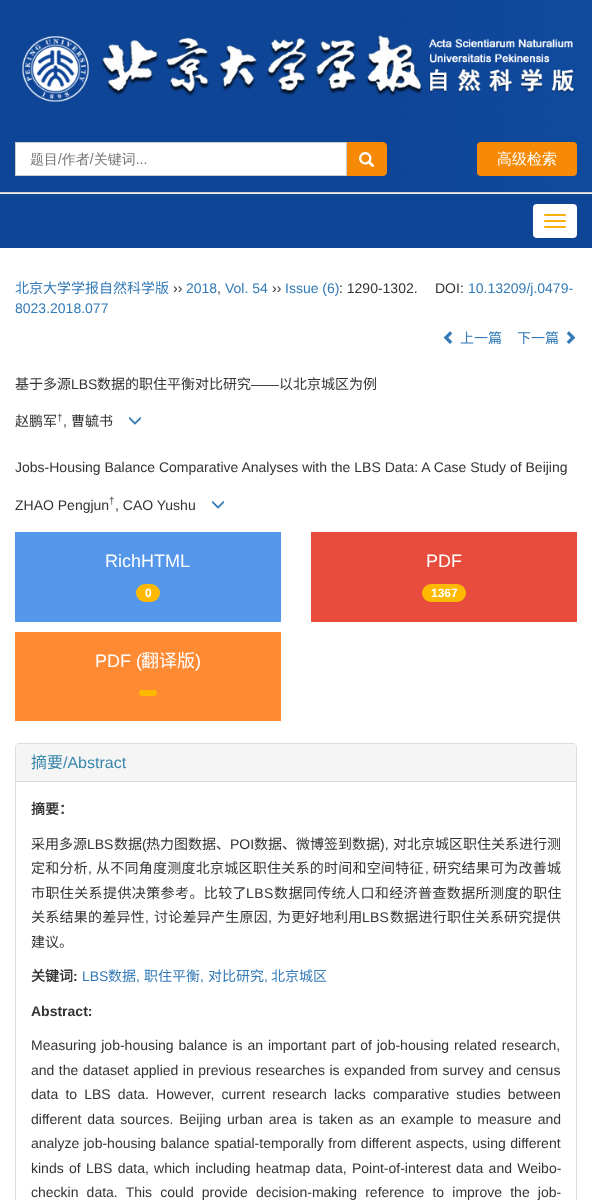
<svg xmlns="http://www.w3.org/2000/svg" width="592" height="1200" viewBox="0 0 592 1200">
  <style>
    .t1 { font: 14px Noto Sans CJK SC; fill: #337ab7; }
    .t2 { font: 14px Liberation Sans; fill: #333; }
    .t3 { font: 14px Liberation Sans; fill: #337ab7; }
    .t4 { font: 14px Noto Sans CJK SC; fill: #333; }
    .t5 { font: 10px Liberation Sans; fill: #333; }
    .t6 { font: 18px Liberation Sans; fill: #fff; }
    .t7 { font: bold 12px Liberation Sans; fill: #fff; }
    .t8 { font: 18px Noto Sans CJK SC; fill: #fff; }
    .t9 { font: 16px Noto Sans CJK SC; fill: #3a87ad; }
    .t10 { font: 16px Liberation Sans; fill: #3a87ad; }
    .t11 { font: bold 14px Noto Sans CJK SC; fill: #333; }
    .t12 { font: 14px Noto Sans CJK SC; letter-spacing: 0.25px; fill: #333; }
    .t13 { font: 14px Liberation Sans; letter-spacing: 0.25px; fill: #333; }
    .t14 { font: 14px Noto Sans CJK SC; letter-spacing: 0.4px; fill: #333; }
    .t15 { font: 14px Liberation Sans; letter-spacing: 0.4px; fill: #333; }
    .t16 { font: bold 14px Liberation Sans; fill: #333; }
  </style>
  <rect width="100%" height="100%" fill="#fff"/>
  <image x="0" y="0" width="592" height="192" href="images/1.png"/>
  <rect x="0" y="192" width="592" height="1" fill="#ccc"/>
  <image x="22" y="35" width="553" height="67" href="images/2.png"/>
  <image x="15" y="142" width="562" height="34" href="images/3.png"/>
  <rect x="0" y="194" width="592" height="54" fill="#0e4597"/>
  <rect x="0" y="193" width="592" height="1" fill="#ebf0f3"/>
  <rect x="533" y="204" width="44" height="34" rx="4" fill="#fff"/>
  <rect x="544" y="214" width="22" height="2" rx="1" fill="#f8ae0d"/>
  <rect x="544" y="220" width="22" height="2" rx="1" fill="#f8ae0d"/>
  <rect x="544" y="226" width="22" height="2" rx="1" fill="#f8ae0d"/>
  <text x="15" y="293" class="t1">北京大学学报自然科学版</text>
  <text x="173" y="293" class="t2">››</text>
  <text x="186" y="293" class="t3">2018</text>
  <text x="217" y="293" class="t2">,</text>
  <text x="225" y="293" class="t3">Vol. 54</text>
  <text x="272" y="293" class="t2">››</text>
  <text x="285" y="293" class="t3">Issue (6)</text>
  <text x="339" y="293" class="t2">: 1290-1302.</text>
  <text x="435" y="293" class="t2">DOI:</text>
  <text x="468" y="293" class="t3">10.13209/j.0479-</text>
  <text x="15" y="313" class="t3">8023.2018.077</text>
  <image x="443" y="331" width="10" height="13" href="images/4.png"/>
  <text x="460" y="343" class="t1">上一篇</text>
  <text x="517" y="343" class="t1">下一篇</text>
  <image x="566" y="331" width="10" height="13" href="images/5.png"/>
  <text x="15" y="389" class="t4">基于多源</text>
  <text x="71" y="389" class="t2">LBS</text>
  <text x="97" y="389" class="t4">数据的职住平衡对比研究</text>
  <text x="251" y="389" class="t2">——</text>
  <text x="279" y="389" class="t4">以北京城区为例</text>
  <text x="15" y="426" class="t4">赵鹏军</text>
  <text x="57" y="421" class="t5">†</text>
  <text x="71" y="426" class="t4">曹毓书</text>
  <image x="129" y="416" width="12" height="9" href="images/6.png"/>
  <text x="63" y="426" class="t2">,</text>
  <text x="15" y="472" class="t2">Jobs-Housing Balance Comparative Analyses with the LBS Data: A Case Study of Beijing</text>
  <text x="15" y="510" class="t2">ZHAO Pengjun</text>
  <text x="109" y="504" class="t5">†</text>
  <text x="115" y="510" class="t2">, CAO Yushu</text>
  <image x="212" y="500" width="12" height="9" href="images/6.png"/>
  <rect x="15" y="532" width="266" height="90" fill="#5497eb"/>
  <text x="105" y="567" class="t6">RichHTML</text>
  <rect x="136" y="584" width="24" height="18" rx="9" fill="#ffb900"/>
  <text x="145" y="597" class="t7">0</text>
  <rect x="311" y="532" width="266" height="90" fill="#e74c3c"/>
  <text x="426" y="567" class="t6">PDF</text>
  <rect x="422" y="584" width="44" height="18" rx="9" fill="#ffb900"/>
  <text x="431" y="597" class="t7">1367</text>
  <rect x="15" y="632" width="266" height="89" fill="#ff8a34"/>
  <text x="95" y="667" class="t6">PDF (</text>
  <text x="141" y="667" class="t8">翻译版</text>
  <text x="195" y="667" class="t6">)</text>
  <rect x="139" y="690" width="18" height="6" rx="3" fill="#ffb900"/>
  <rect x="15.5" y="743.5" width="561" height="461" rx="3.5" fill="none" stroke="#ddd"/>
  <path d="M19 744H573C574.5 744 576 745.5 576 747V781H16V747C16 745.5 17.5 744 19 744Z" fill="#f5f5f5"/>
  <text x="31" y="768" class="t9">摘要</text>
  <text x="63" y="768" class="t10">/Abstract</text>
  <rect x="16" y="781" width="560" height="1" fill="#ddd"/>
  <text x="31" y="814" class="t11">摘要：</text>
  <text x="31" y="849" class="t4">采用多源</text>
  <text x="87" y="849" class="t2">LBS</text>
  <text x="114" y="849" class="t4">数据</text>
  <text x="142" y="849" class="t2">(</text>
  <text x="146" y="849" class="t4">热力图数据、</text>
  <text x="230" y="849" class="t2">POI</text>
  <text x="254" y="849" class="t4">数据、微博签到数据</text>
  <text x="380" y="849" class="t2">),</text>
  <text x="393" y="849" class="t4">对北京城区职住关系进行测</text>
  <text x="31" y="873" class="t12">定和分析</text>
  <text x="88" y="873" class="t13">,</text>
  <text x="96" y="873" class="t12">从不同角度测度北京城区职住关系的时间和空间特征</text>
  <text x="425" y="873" class="t13">,</text>
  <text x="433" y="873" class="t12">研究结果可为改善城</text>
  <text x="31" y="898" class="t14">市职住关系提供决策参考。比较了</text>
  <text x="246" y="898" class="t15">LBS</text>
  <text x="274" y="898" class="t14">数据同传统人口和经济普查数据所测度的职住</text>
  <text x="31" y="922" class="t12">关系结果的差异性</text>
  <text x="145" y="922" class="t13">,</text>
  <text x="154" y="922" class="t12">讨论差异产生原因</text>
  <text x="268" y="922" class="t13">,</text>
  <text x="277" y="922" class="t12">为更好地利用</text>
  <text x="362" y="922" class="t13">LBS</text>
  <text x="390" y="922" class="t12">数据进行职住关系研究提供</text>
  <text x="31" y="947" class="t4">建议。</text>
  <text x="31" y="981" class="t11">关键词</text>
  <text x="73" y="981" class="t16">:</text>
  <text x="82" y="981" class="t3">LBS</text>
  <text x="108" y="981" class="t1">数据</text>
  <text x="136" y="981" class="t3">,</text>
  <text x="144" y="981" class="t1">职住平衡</text>
  <text x="200" y="981" class="t3">,</text>
  <text x="208" y="981" class="t1">对比研究</text>
  <text x="264" y="981" class="t3">,</text>
  <text x="271" y="981" class="t1">北京城区</text>
  <text x="31" y="1016" class="t16">Abstract:</text>
  <text x="31" y="1050" word-spacing="1" class="t2">Measuring job-housing balance is an important part of job-housing related research,</text>
  <text x="31" y="1075" word-spacing="0.6" class="t2">and the dataset applied in previous researches is expanded from survey and census</text>
  <text x="31" y="1099" word-spacing="3.25" class="t2">data to LBS data. However, current research lacks comparative studies between</text>
  <text x="31" y="1124" word-spacing="2" class="t2">different data sources. Beijing urban area is taken as an example to measure and</text>
  <text x="31" y="1148" word-spacing="0.6" class="t2">analyze job-housing balance spatial-temporally from different aspects, using different</text>
  <text x="31" y="1173" word-spacing="1.4" class="t2">kinds of LBS data, which including heatmap data, Point-of-interest data and Weibo-</text>
  <text x="31" y="1197" word-spacing="4.25" class="t2">checkin data. This could provide decision-making reference to improve the job-</text>
</svg>
